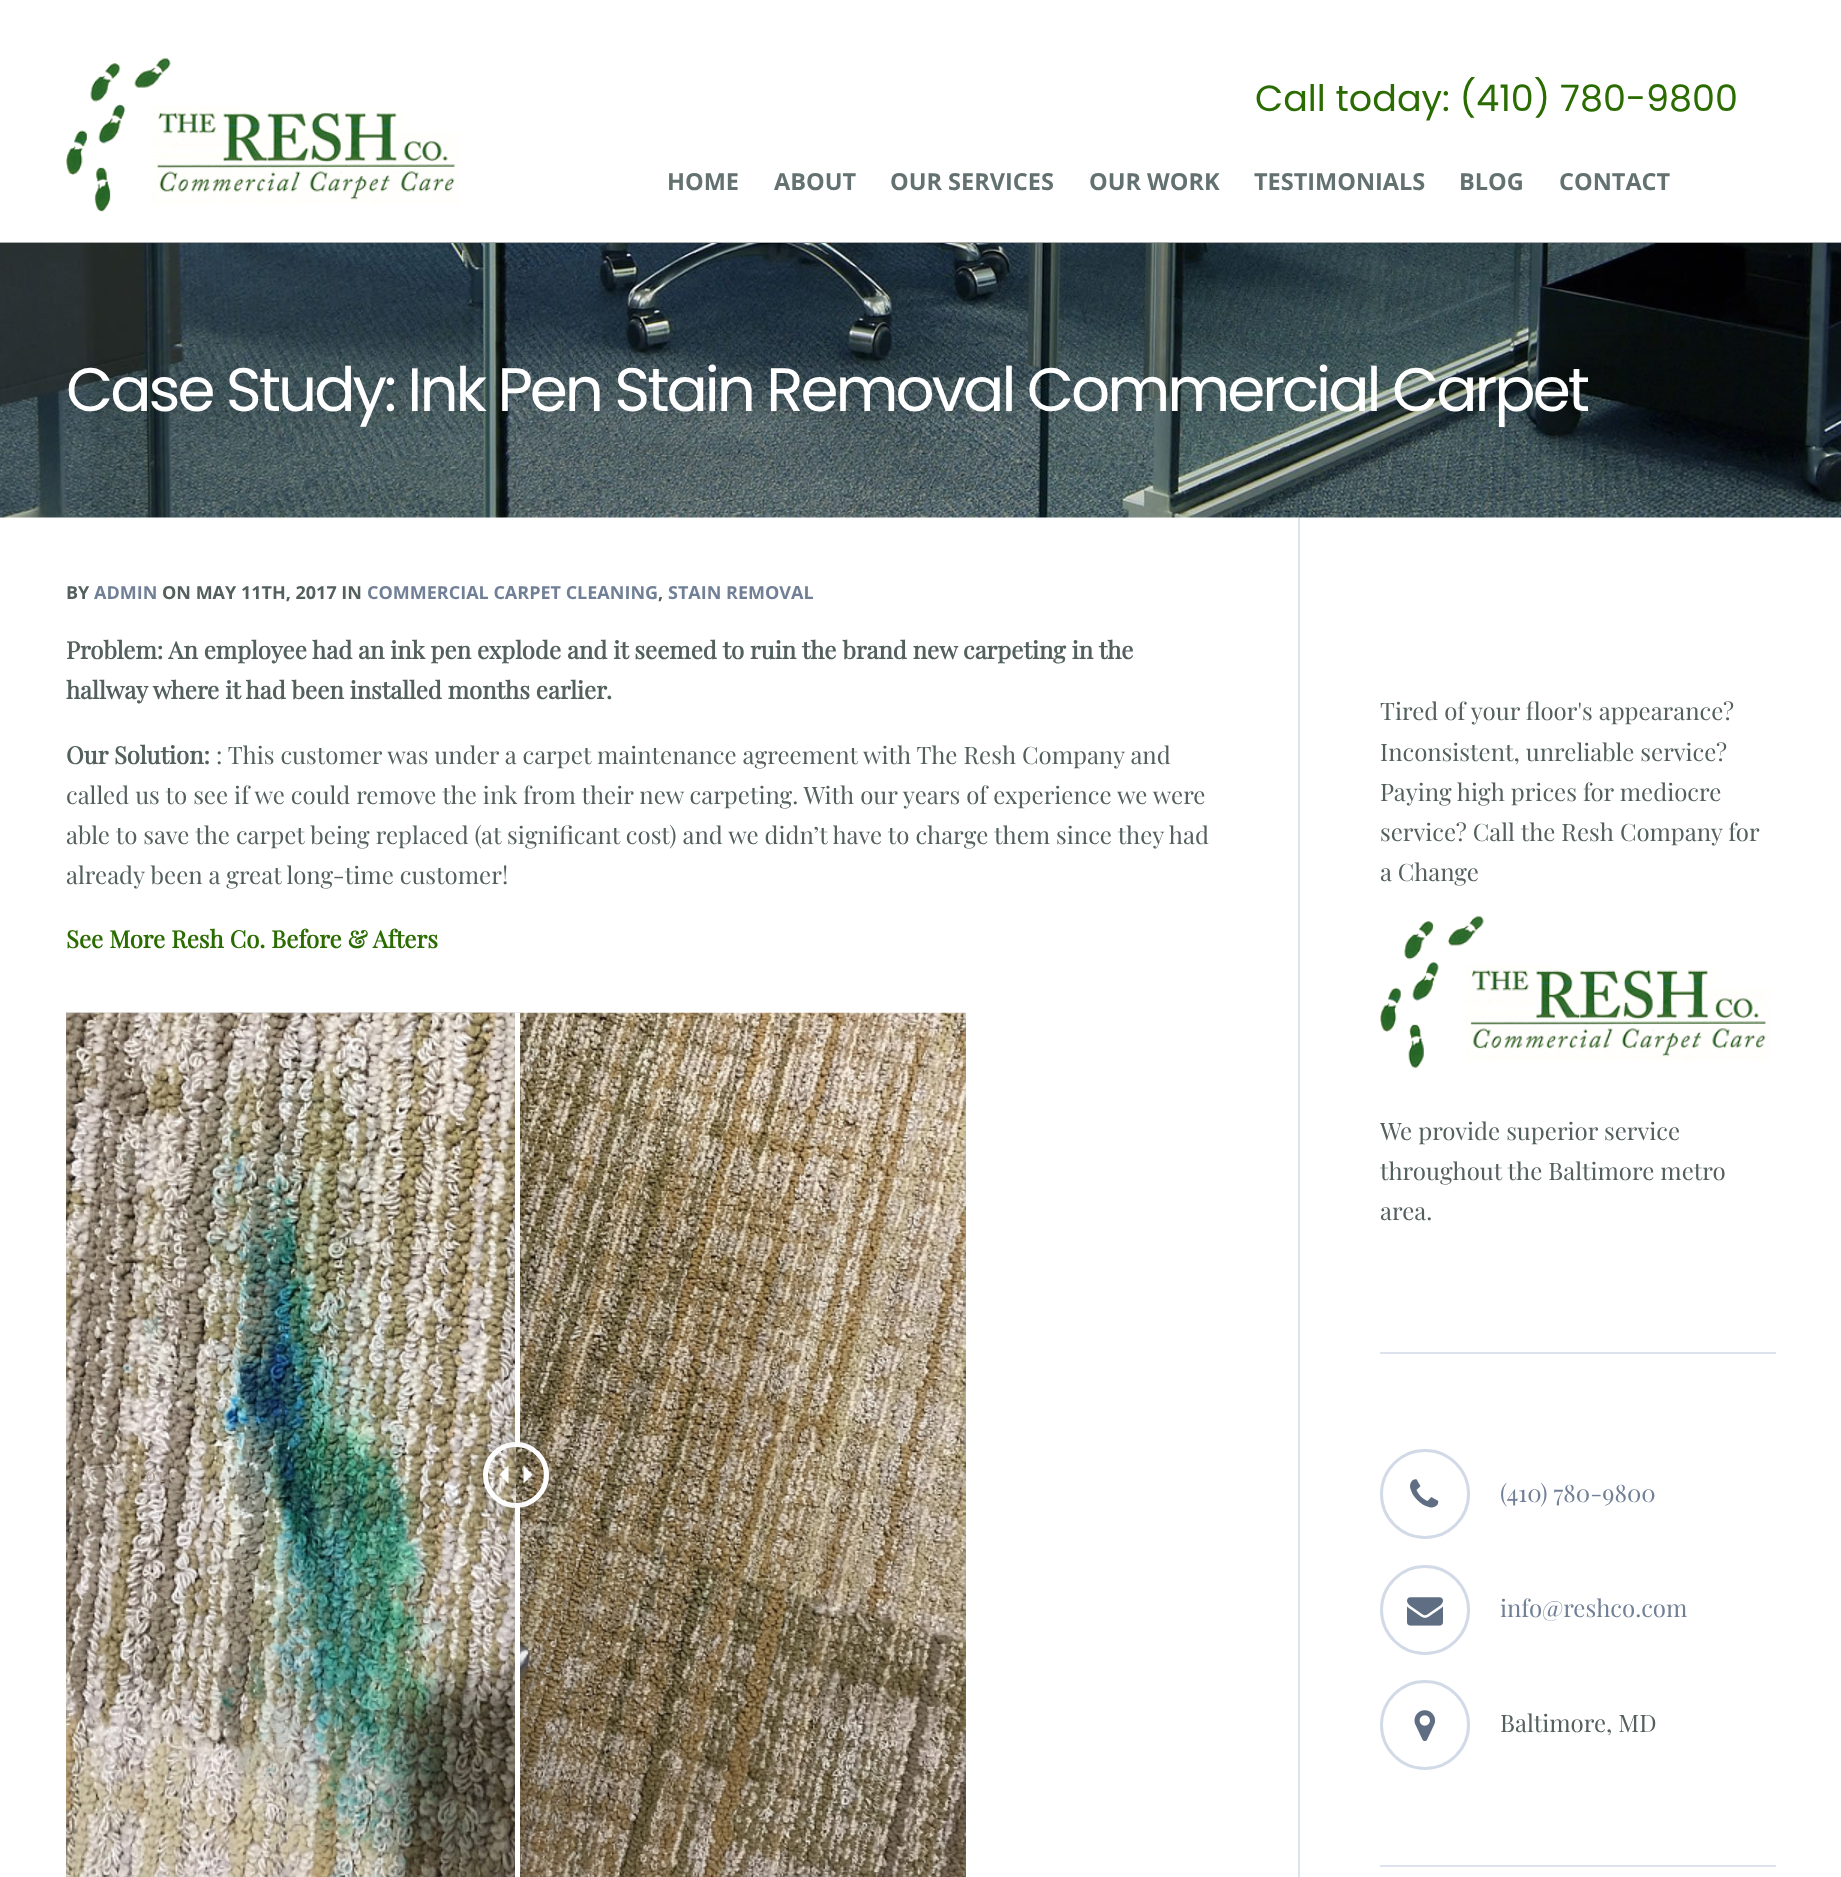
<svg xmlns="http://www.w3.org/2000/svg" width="1841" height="1877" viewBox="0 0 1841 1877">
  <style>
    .t1 { font: 36.5px Poppins; fill: #2b6c02; }
    .t2 { font: bold 23.5px Open Sans; fill: #637270; }
    .t3 { font: 61.2px Poppins; letter-spacing: -3px; fill: #fff; }
    .t4 { font: bold 18px Open Sans; fill: #53605e; }
    .t5 { font: bold 18px Open Sans; fill: #718097; }
    .t6 { font: bold 24px Playfair Display; fill: #53605e; }
    .t7 { font: 24px Playfair Display; fill: #53605e; }
    .t8 { font: bold 24px Playfair Display; fill: #2b6c02; }
    .t9 { font: 19.5px Playfair Display; letter-spacing: 2px; fill: #aea294; }
    .t10 { font: 24px Playfair Display; fill: #718097; }
  </style>
  <defs>
    <clipPath id="clip1"><path d="M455 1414H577V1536H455ZM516 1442C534 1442 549 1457 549 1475C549 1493 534 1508 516 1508C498 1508 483 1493 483 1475C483 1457 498 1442 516 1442Z" clip-rule="evenodd"/></clipPath>
    <clipPath id="clip2"><rect x="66" y="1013" width="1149" height="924"/></clipPath>
    <clipPath id="clip3"><rect x="66" y="1013" width="1149" height="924"/></clipPath>
  </defs>
  <rect width="100%" height="100%" fill="#fff"/>
  <rect x="0" y="242" width="1841" height="1" fill="#aaa"/>
  <image x="66" y="58" width="393" height="154" href="images/1.png"/>
  <text x="1255" y="111" class="t1">Call today: (410) 780-9800</text>
  <text x="667" y="190" class="t2">HOME</text>
  <text x="774" y="190" class="t2">ABOUT</text>
  <text x="890" y="190" class="t2">OUR SERVICES</text>
  <text x="1089" y="190" class="t2">OUR WORK</text>
  <text x="1254" y="190" class="t2">TESTIMONIALS</text>
  <text x="1459" y="190" class="t2">BLOG</text>
  <text x="1559" y="190" class="t2">CONTACT</text>
  <image x="0" y="243" width="1841" height="275" href="images/2.png"/>
  <text x="66" y="411" class="t3">Case Study: Ink Pen Stain Removal Commercial Carpet</text>
  <text x="66" y="599" class="t4">BY</text>
  <text x="94" y="599" class="t5">ADMIN</text>
  <text x="162" y="599" class="t4">ON MAY 11TH, 2017 IN</text>
  <text x="367" y="599" class="t5">COMMERCIAL CARPET CLEANING</text>
  <text x="658" y="599" class="t4">,</text>
  <text x="668" y="599" class="t5">STAIN REMOVAL</text>
  <text x="66" y="659" class="t6">Problem: An employee had an ink pen explode and it seemed to ruin the brand new carpeting in the</text>
  <text x="66" y="699" class="t6">hallway where it had been installed months earlier.</text>
  <text x="66" y="764" class="t6">Our Solution:</text>
  <text x="216" y="764" class="t7">: This customer was under a carpet maintenance agreement with The Resh Company and</text>
  <text x="66" y="804" class="t7">called us to see if we could remove the ink from their new carpeting. With our years of experience we were</text>
  <text x="66" y="844" class="t7">able to save the carpet being replaced (at significant cost) and we didn’t have to charge them since they had</text>
  <text x="66" y="884" class="t7">already been a great long-time customer!</text>
  <text x="66" y="948" class="t8">See More Resh Co. Before &amp; Afters</text>
  <image x="66" y="1012" width="900" height="865" href="images/3.png"/>
  <image x="66" y="1012" width="450" height="865" href="images/4.png"/>
  <g clip-path="url(#clip1)">
    <rect x="483" y="1442" width="66" height="66" rx="33" fill="#33333380" filter="blur(9px)"/>
  </g>
  <circle cx="516" cy="1475" r="30.5" fill="none" stroke="#fff" stroke-width="5"/>
  <path d="M508.5 1465.5V1483.5L499.5 1474.5ZM523.5 1483.5V1465.5L532.5 1474.5Z" fill="#fff"/>
  <g clip-path="url(#clip2)">
    <rect x="515" y="-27" width="5" height="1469" fill="#33333380" filter="blur(9px)"/>
  </g>
  <g clip-path="url(#clip3)">
    <path d="M515 1442V1446H520V-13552H519V1442Z" fill="#fff"/>
  </g>
  <rect x="515" y="1013" width="4" height="429" fill="#fff"/>
  <rect x="515" y="1508" width="5" height="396" fill="#33333380" filter="blur(9px)"/>
  <path d="M515 1503V1508H519V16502H520V1503Z" fill="#fff"/>
  <rect x="515" y="1508" width="4" height="369" fill="#fff"/>
  <text x="111" y="1482" class="t9">Before</text>
  <rect x="1298" y="518" width="2" height="1359" fill="#dce3ef"/>
  <text x="1380" y="720" class="t7">Tired of your floor's appearance?</text>
  <text x="1380" y="761" class="t7">Inconsistent, unreliable service?</text>
  <text x="1380" y="801" class="t7">Paying high prices for mediocre</text>
  <text x="1380" y="841" class="t7">service? Call the Resh Company for</text>
  <text x="1380" y="881" class="t7">a Change</text>
  <image x="1380" y="916" width="390" height="152" href="images/5.png"/>
  <text x="1380" y="1140" class="t7">We provide superior service</text>
  <text x="1380" y="1180" class="t7">throughout the Baltimore metro</text>
  <text x="1380" y="1220" class="t7">area.</text>
  <rect x="1380" y="1352" width="396" height="2" fill="#dce3ef"/>
  <circle cx="1425" cy="1494" r="43.5" fill="none" stroke="#d2dae8" stroke-width="3"/>
  <image x="1410" y="1479" width="29" height="29" href="images/6.png"/>
  <text x="1500" y="1502" class="t10">(410) 780-9800</text>
  <circle cx="1425" cy="1610" r="43.5" fill="none" stroke="#d2dae8" stroke-width="3"/>
  <image x="1407" y="1597" width="36" height="29" href="images/7.png"/>
  <text x="1500" y="1617" class="t10">info@reshco.com</text>
  <circle cx="1425" cy="1725" r="43.5" fill="none" stroke="#d2dae8" stroke-width="3"/>
  <image x="1414" y="1710" width="22" height="32" href="images/8.png"/>
  <text x="1500" y="1732" class="t7">Baltimore, MD</text>
  <rect x="1380" y="1865" width="396" height="2" fill="#dce3ef"/>
</svg>
